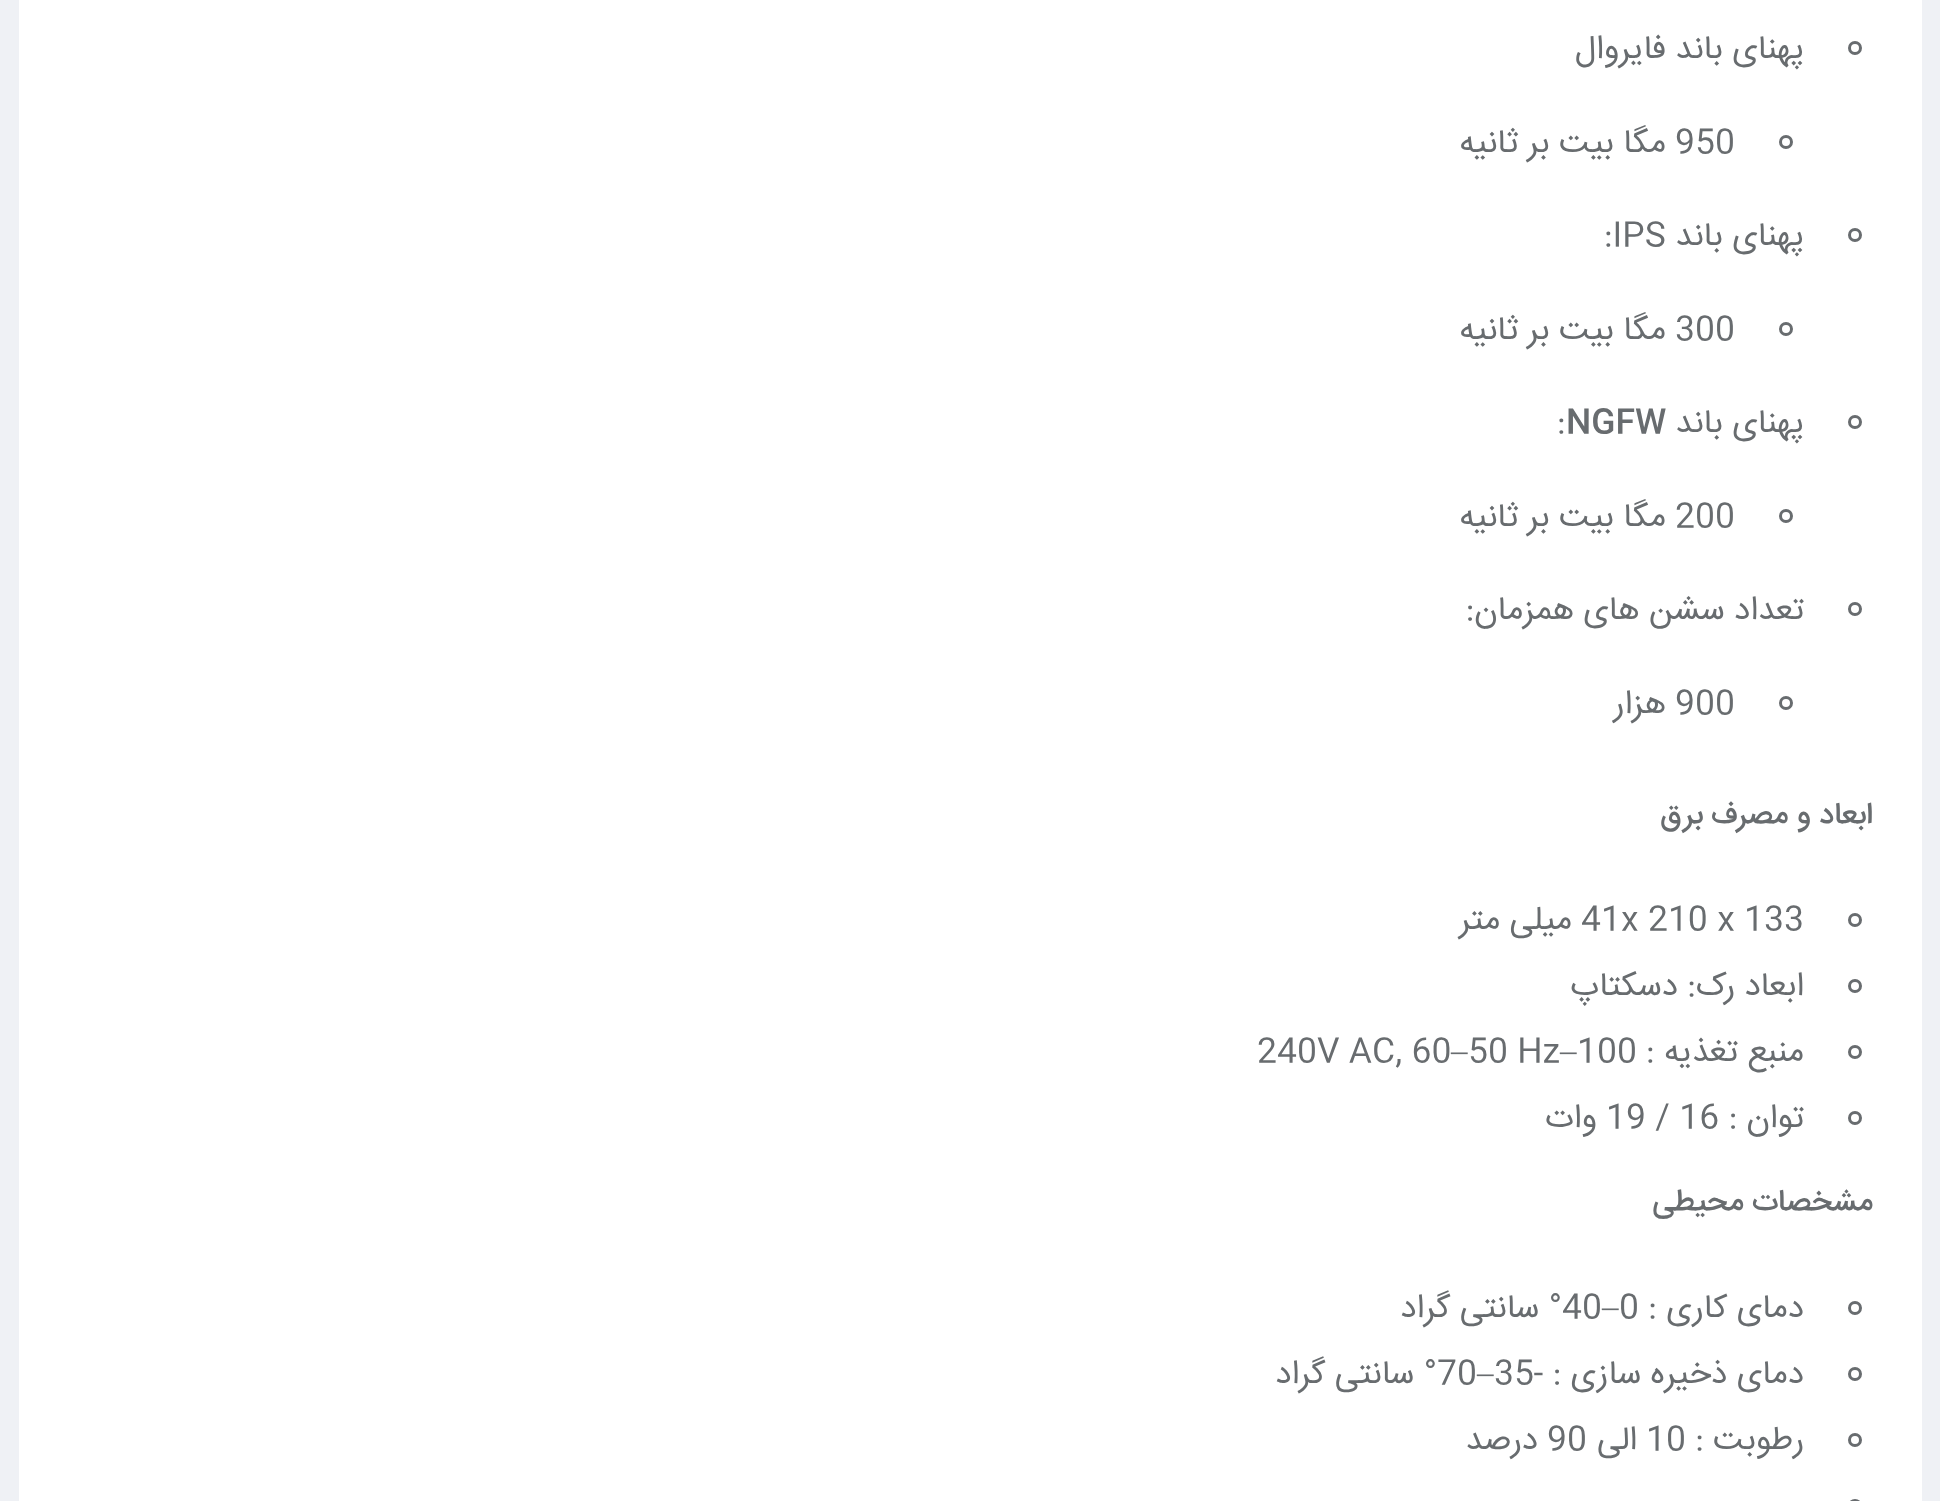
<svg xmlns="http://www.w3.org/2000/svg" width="1940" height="1501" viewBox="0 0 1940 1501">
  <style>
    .t1 { font: 33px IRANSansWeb; direction: rtl; fill: #686c6f; }
    .t2 { font: 33px IRANSansWeb; fill: #686c6f; }
    .t3 { font: 500 33px IRANSansWeb; fill: #686c6f; }
    .t4 { font: 500 30.25px IRANSansWeb; direction: rtl; fill: #686c6f; }
    .t5 { font: 33px Liberation Serif; fill: #686c6f; }
  </style>
  <rect width="100%" height="100%" fill="#eff1f5"/>
  <rect x="19" y="0" width="1903" height="1501" fill="#fff"/>
  <circle cx="1855" cy="48" r="5.5" fill="none" stroke="#686c6f" stroke-width="3"/>
  <text x="1804" y="58" class="t1">پهنای باند فایروال</text>
  <circle cx="1786" cy="142" r="5.5" fill="none" stroke="#686c6f" stroke-width="3"/>
  <text x="1675" y="152" class="t2">950</text>
  <text x="1666" y="152" class="t1">مگا بیت بر ثانیه</text>
  <circle cx="1855" cy="235" r="5.5" fill="none" stroke="#686c6f" stroke-width="3"/>
  <text x="1804" y="245" class="t1">پهنای باند</text>
  <text x="1604" y="245" class="t2">:IPS</text>
  <circle cx="1786" cy="329" r="5.5" fill="none" stroke="#686c6f" stroke-width="3"/>
  <text x="1675" y="339" class="t2">300</text>
  <text x="1666" y="339" class="t1">مگا بیت بر ثانیه</text>
  <circle cx="1855" cy="422" r="5.5" fill="none" stroke="#686c6f" stroke-width="3"/>
  <text x="1804" y="432" class="t1">پهنای باند</text>
  <text x="1566" y="432" class="t3">NGFW</text>
  <text x="1557" y="432" class="t2">:</text>
  <circle cx="1786" cy="516" r="5.5" fill="none" stroke="#686c6f" stroke-width="3"/>
  <text x="1675" y="526" class="t2">200</text>
  <text x="1666" y="526" class="t1">مگا بیت بر ثانیه</text>
  <circle cx="1855" cy="609" r="5.5" fill="none" stroke="#686c6f" stroke-width="3"/>
  <text x="1804" y="619" class="t1">تعداد سشن های همزمان:</text>
  <circle cx="1786" cy="703" r="5.5" fill="none" stroke="#686c6f" stroke-width="3"/>
  <text x="1675" y="713" class="t2">900</text>
  <text x="1666" y="713" class="t1">هزار</text>
  <text x="1873" y="823" class="t4">ابعاد و مصرف برق</text>
  <circle cx="1855" cy="920" r="5.5" fill="none" stroke="#686c6f" stroke-width="3"/>
  <text x="1581" y="929" class="t2">41x 210 x 133</text>
  <text x="1572" y="929" class="t1">میلی متر</text>
  <circle cx="1855" cy="986" r="5.5" fill="none" stroke="#686c6f" stroke-width="3"/>
  <text x="1804" y="995" class="t1">ابعاد رک: دسکتاپ</text>
  <circle cx="1855" cy="1052" r="5.5" fill="none" stroke="#686c6f" stroke-width="3"/>
  <text x="1804" y="1061" class="t1">منبع تغذیه :</text>
  <text x="1577" y="1061" class="t2">100</text>
  <text x="1560" y="1061" class="t5">–</text>
  <text x="1468" y="1061" class="t2">50 Hz</text>
  <text x="1451" y="1061" class="t5">–</text>
  <text x="1257" y="1061" class="t2">240V AC, 60</text>
  <circle cx="1855" cy="1118" r="5.5" fill="none" stroke="#686c6f" stroke-width="3"/>
  <text x="1804" y="1127" class="t1">توان :</text>
  <text x="1606" y="1127" class="t2">19 / 16</text>
  <text x="1597" y="1127" class="t1">وات</text>
  <text x="1873" y="1210" class="t4">مشخصات محیطی</text>
  <circle cx="1855" cy="1308" r="5.5" fill="none" stroke="#686c6f" stroke-width="3"/>
  <text x="1804" y="1317" class="t1">دمای کاری :</text>
  <text x="1619" y="1317" class="t2">0</text>
  <text x="1602" y="1317" class="t5">–</text>
  <text x="1562" y="1317" class="t2">40</text>
  <text x="1562" y="1317" class="t1">° سانتی گراد</text>
  <circle cx="1855" cy="1374" r="5.5" fill="none" stroke="#686c6f" stroke-width="3"/>
  <text x="1804" y="1383" class="t1">دمای ذخیره سازی : -</text>
  <text x="1494" y="1383" class="t2">35</text>
  <text x="1477" y="1383" class="t5">–</text>
  <text x="1437" y="1383" class="t2">70</text>
  <text x="1437" y="1383" class="t1">° سانتی گراد</text>
  <circle cx="1855" cy="1440" r="5.5" fill="none" stroke="#686c6f" stroke-width="3"/>
  <text x="1804" y="1449" class="t1">رطوبت :</text>
  <text x="1646" y="1449" class="t2">10</text>
  <text x="1637" y="1449" class="t1">الی</text>
  <text x="1547" y="1449" class="t2">90</text>
  <text x="1538" y="1449" class="t1">درصد</text>
  <rect x="1849.5" y="1500.5" width="11" height="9" rx="5.5" fill="none" stroke="#686c6f" stroke-width="3"/>
</svg>
